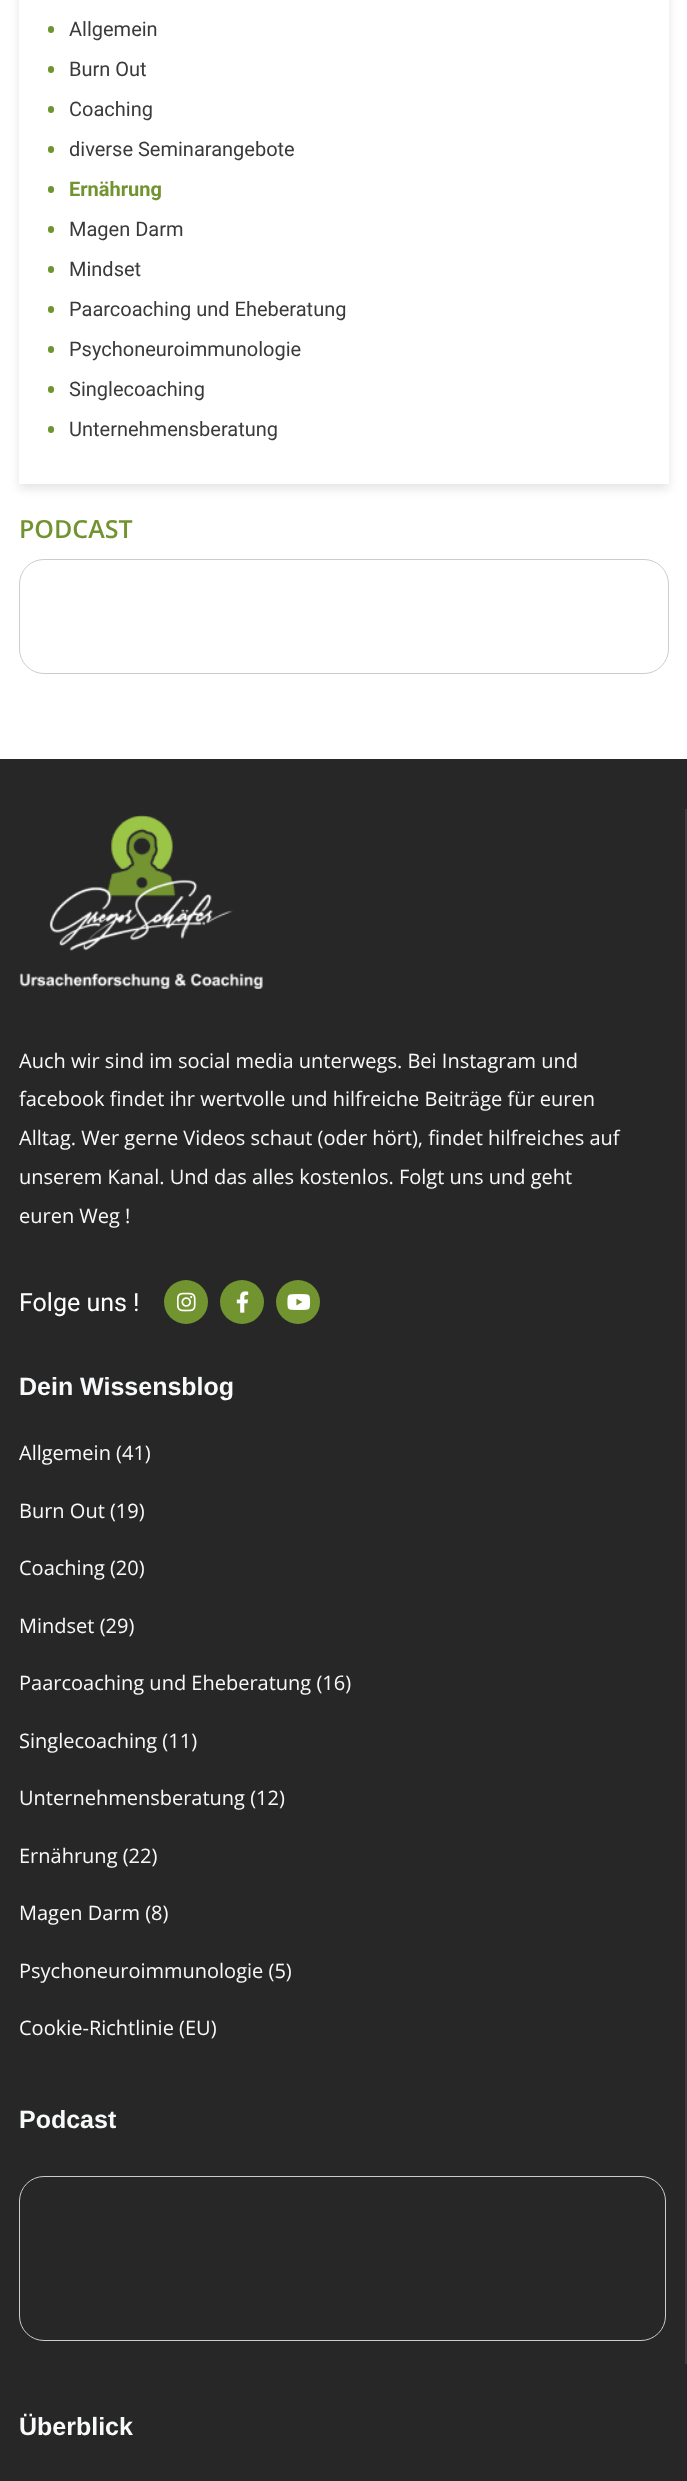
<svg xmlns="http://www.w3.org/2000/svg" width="687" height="2481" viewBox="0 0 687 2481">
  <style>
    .t1 { font: 20px Roboto; fill: #3a3a3a; }
    .t2 { font: bold 20px Roboto; fill: #729430; }
    .t3 { font: 600 25px Open Sans; fill: #729430; }
    .t4 { font: 20px Open Sans; fill: #f8f9fa; }
    .t5 { font: 25px Roboto; fill: #fff; }
    .t6 { font: bold 25px Liberation Sans; fill: #f8f9fa; }
  </style>
  <defs>
    <clipPath id="clip1"><path d="M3 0H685V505H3ZM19-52H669V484H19Z" clip-rule="evenodd"/></clipPath>
  </defs>
  <rect width="100%" height="100%" fill="#fff"/>
  <g clip-path="url(#clip1)">
    <rect x="19" y="-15" width="650" height="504" fill="#0000001a" filter="blur(5px)"/>
  </g>
  <rect x="48" y="26" width="6" height="7" rx="3" fill="#729430"/>
  <text x="69" y="36" class="t1">Allgemein</text>
  <rect x="48" y="66" width="6" height="7" rx="3" fill="#729430"/>
  <text x="69" y="76" class="t1">Burn Out</text>
  <rect x="48" y="106" width="6" height="7" rx="3" fill="#729430"/>
  <text x="69" y="116" class="t1">Coaching</text>
  <rect x="48" y="146" width="6" height="7" rx="3" fill="#729430"/>
  <text x="69" y="156" class="t1">diverse Seminarangebote</text>
  <rect x="48" y="186" width="6" height="7" rx="3" fill="#729430"/>
  <text x="69" y="196" class="t2">Ernährung</text>
  <rect x="48" y="226" width="6" height="7" rx="3" fill="#729430"/>
  <text x="69" y="236" class="t1">Magen Darm</text>
  <rect x="48" y="266" width="6" height="7" rx="3" fill="#729430"/>
  <text x="69" y="276" class="t1">Mindset</text>
  <rect x="48" y="306" width="6" height="7" rx="3" fill="#729430"/>
  <text x="69" y="316" class="t1">Paarcoaching und Eheberatung</text>
  <rect x="48" y="346" width="6" height="7" rx="3" fill="#729430"/>
  <text x="69" y="356" class="t1">Psychoneuroimmunologie</text>
  <rect x="48" y="386" width="6" height="7" rx="3" fill="#729430"/>
  <text x="69" y="396" class="t1">Singlecoaching</text>
  <rect x="48" y="426" width="6" height="7" rx="3" fill="#729430"/>
  <text x="69" y="436" class="t1">Unternehmensberatung</text>
  <text x="19" y="538" class="t3">PODCAST</text>
  <rect x="19.5" y="559.5" width="649" height="114" rx="24.5" fill="none" stroke="#ccc"/>
  <rect x="0" y="759" width="687" height="1722" fill="#272727"/>
  <rect x="685" y="809" width="2" height="1555" fill="#3c3c3c"/>
  <image x="19" y="815" width="244" height="174" href="images/1.png"/>
  <text x="19" y="1068" class="t4">Auch wir sind im social media unterwegs. Bei Instagram und</text>
  <text x="19" y="1106" class="t4">facebook findet ihr wertvolle und hilfreiche Beiträge für euren</text>
  <text x="19" y="1145" class="t4">Alltag. Wer gerne Videos schaut (oder hört), findet hilfreiches auf</text>
  <text x="19" y="1184" class="t4">unserem Kanal. Und das alles kostenlos. Folgt uns und geht</text>
  <text x="19" y="1223" class="t4">euren Weg !</text>
  <text x="19" y="1311" class="t5">Folge uns !</text>
  <circle cx="186" cy="1302" r="22" fill="#729430"/>
  <image x="176" y="1292" width="20" height="20" href="images/2.png"/>
  <circle cx="242" cy="1302" r="22" fill="#729430"/>
  <image x="236" y="1291" width="13" height="22" href="images/3.png"/>
  <circle cx="298" cy="1302" r="22" fill="#729430"/>
  <image x="287" y="1294" width="24" height="16" href="images/4.png"/>
  <text x="19" y="1395" class="t6">Dein Wissensblog</text>
  <text x="19" y="1460" class="t4">Allgemein (41)</text>
  <text x="19" y="1518" class="t4">Burn Out (19)</text>
  <text x="19" y="1575" class="t4">Coaching (20)</text>
  <text x="19" y="1633" class="t4">Mindset (29)</text>
  <text x="19" y="1690" class="t4">Paarcoaching und Eheberatung (16)</text>
  <text x="19" y="1748" class="t4">Singlecoaching (11)</text>
  <text x="19" y="1805" class="t4">Unternehmensberatung (12)</text>
  <text x="19" y="1863" class="t4">Ernährung (22)</text>
  <text x="19" y="1920" class="t4">Magen Darm (8)</text>
  <text x="19" y="1978" class="t4">Psychoneuroimmunologie (5)</text>
  <text x="19" y="2035" class="t4">Cookie-Richtlinie (EU)</text>
  <text x="19" y="2128" class="t6">Podcast</text>
  <rect x="19.5" y="2176.5" width="646" height="164" rx="24.5" fill="none" stroke="#ccc"/>
  <text x="19" y="2435" class="t6">Überblick</text>
</svg>
